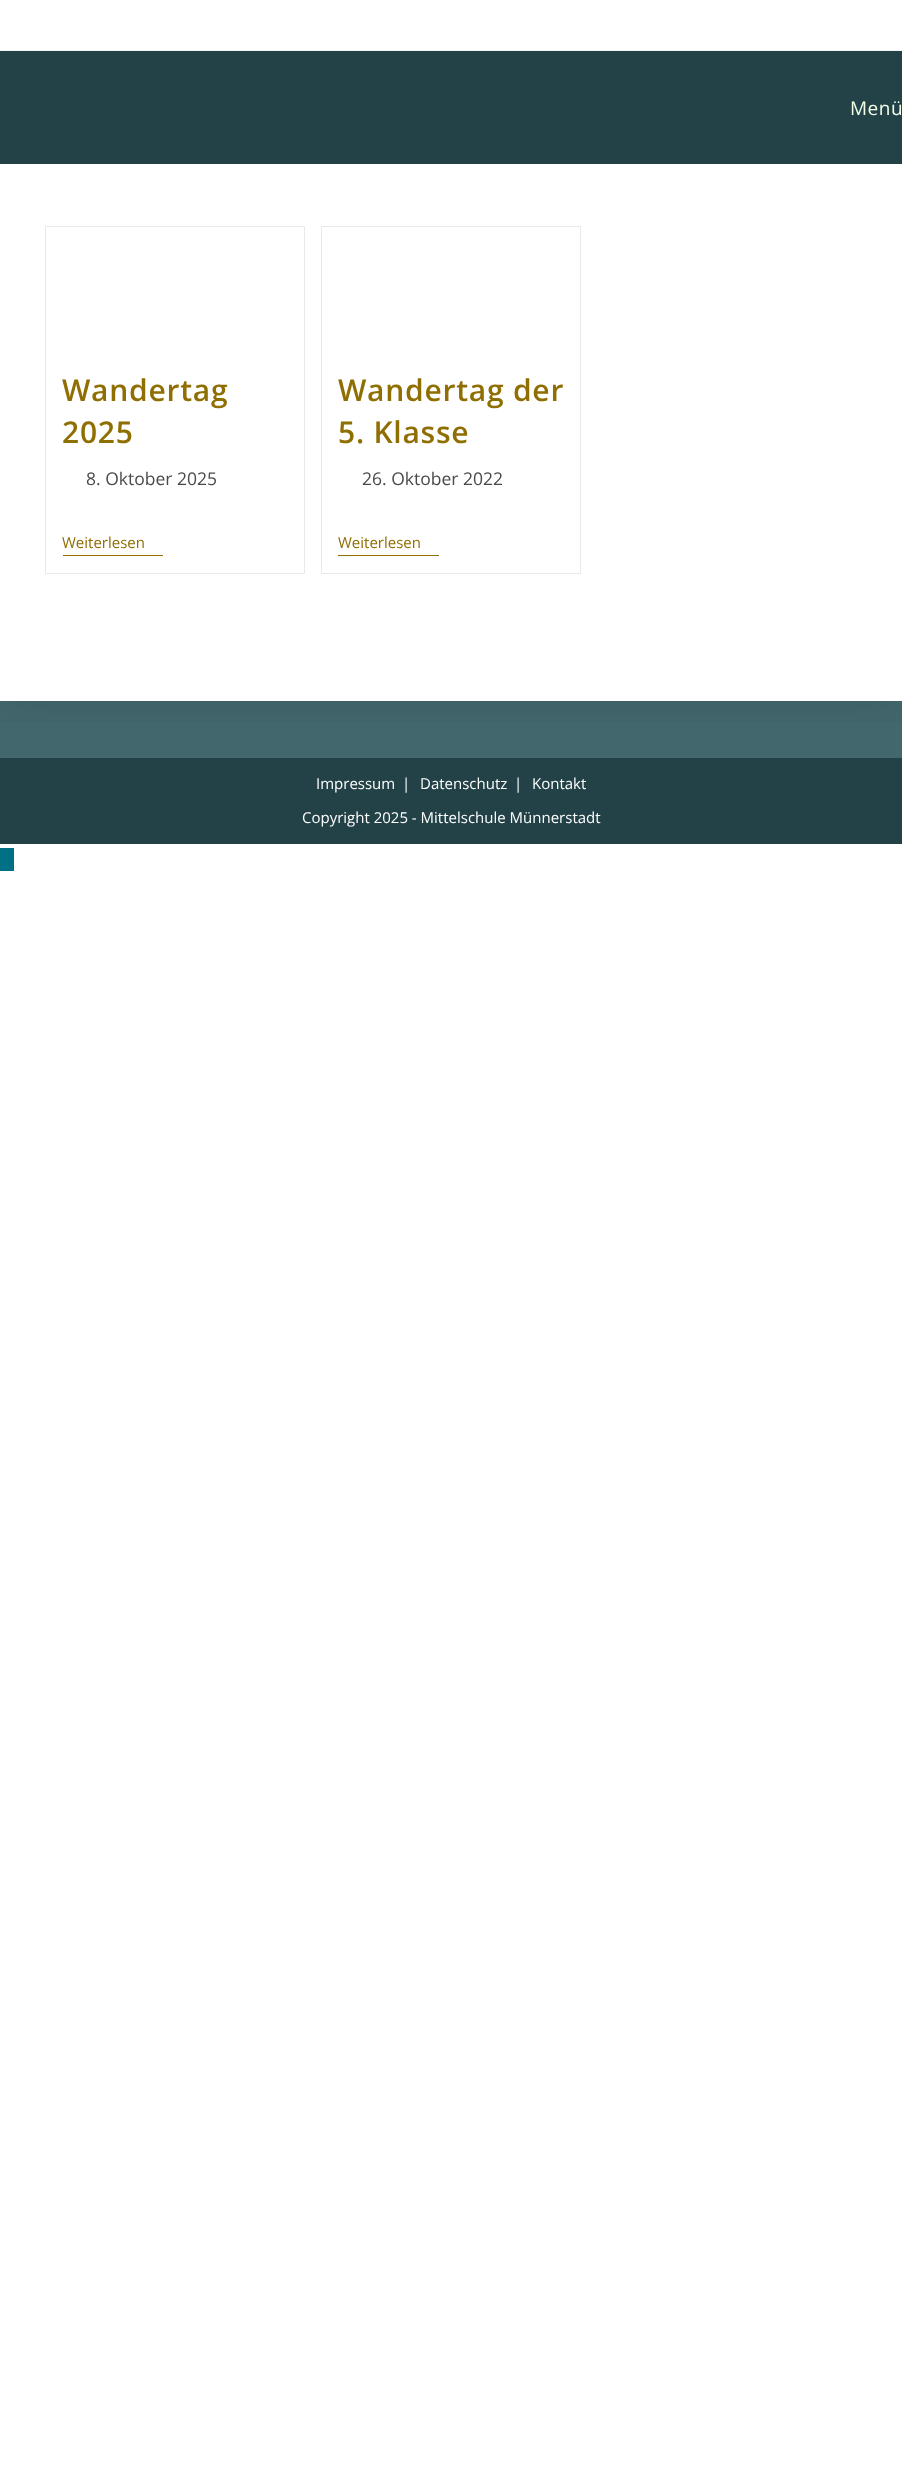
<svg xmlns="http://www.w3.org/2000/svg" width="902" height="2473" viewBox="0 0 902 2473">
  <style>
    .t1 { font: 19px Open Sans; letter-spacing: 0.5px; fill: #f6ffe8; }
    .t2 { font: 600 30px Open Sans; letter-spacing: 0.75px; fill: #8f6e02; }
    .t3 { font: 17.5px Open Sans; fill: #4a4a4a; }
    .t4 { font: 15px Open Sans; fill: #8f6e02; }
    .t5 { font: 15px Open Sans; fill: #fff; }
  </style>
  <defs>
    <clipPath id="clip1"><rect x="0" y="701" width="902" height="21"/></clipPath>
  </defs>
  <rect width="100%" height="100%" fill="#fff"/>
  <rect x="0" y="50" width="902" height="1" fill="#f1f1f1"/>
  <rect x="0" y="701" width="902" height="57" fill="#42676d"/>
  <rect x="0" y="758" width="902" height="86" fill="#224247"/>
  <g clip-path="url(#clip1)">
    <rect x="0" y="164" width="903" height="537" fill="#0000001a" filter="blur(25px)"/>
  </g>
  <rect x="0" y="51" width="902" height="113" fill="#224247"/>
  <text x="850" y="115" class="t1">Menü</text>
  <rect x="45.5" y="226.5" width="259" height="347" fill="none" stroke="#e9e9e9"/>
  <text x="62" y="401" class="t2">Wandertag</text>
  <text x="62" y="443" class="t2">2025</text>
  <text x="86" y="485" class="t3">8. Oktober 2025</text>
  <rect x="63" y="555" width="100" height="1" fill="#8f6e02"/>
  <text x="62" y="548" class="t4">Weiterlesen</text>
  <rect x="321.5" y="226.5" width="259" height="347" fill="none" stroke="#e9e9e9"/>
  <text x="338" y="401" class="t2">Wandertag der</text>
  <text x="338" y="443" class="t2">5. Klasse</text>
  <text x="362" y="485" class="t3">26. Oktober 2022</text>
  <rect x="338" y="555" width="101" height="1" fill="#8f6e02"/>
  <text x="338" y="548" class="t4">Weiterlesen</text>
  <text x="316" y="789" class="t5">Impressum</text>
  <text x="402" y="789" class="t5">|</text>
  <text x="420" y="789" class="t5">Datenschutz</text>
  <text x="514" y="789" class="t5">|</text>
  <text x="532" y="789" class="t5">Kontakt</text>
  <text x="302" y="823" class="t5">Copyright 2025 - Mittelschule Münnerstadt</text>
  <rect x="0" y="848" width="14" height="23" fill="#007184"/>
</svg>
